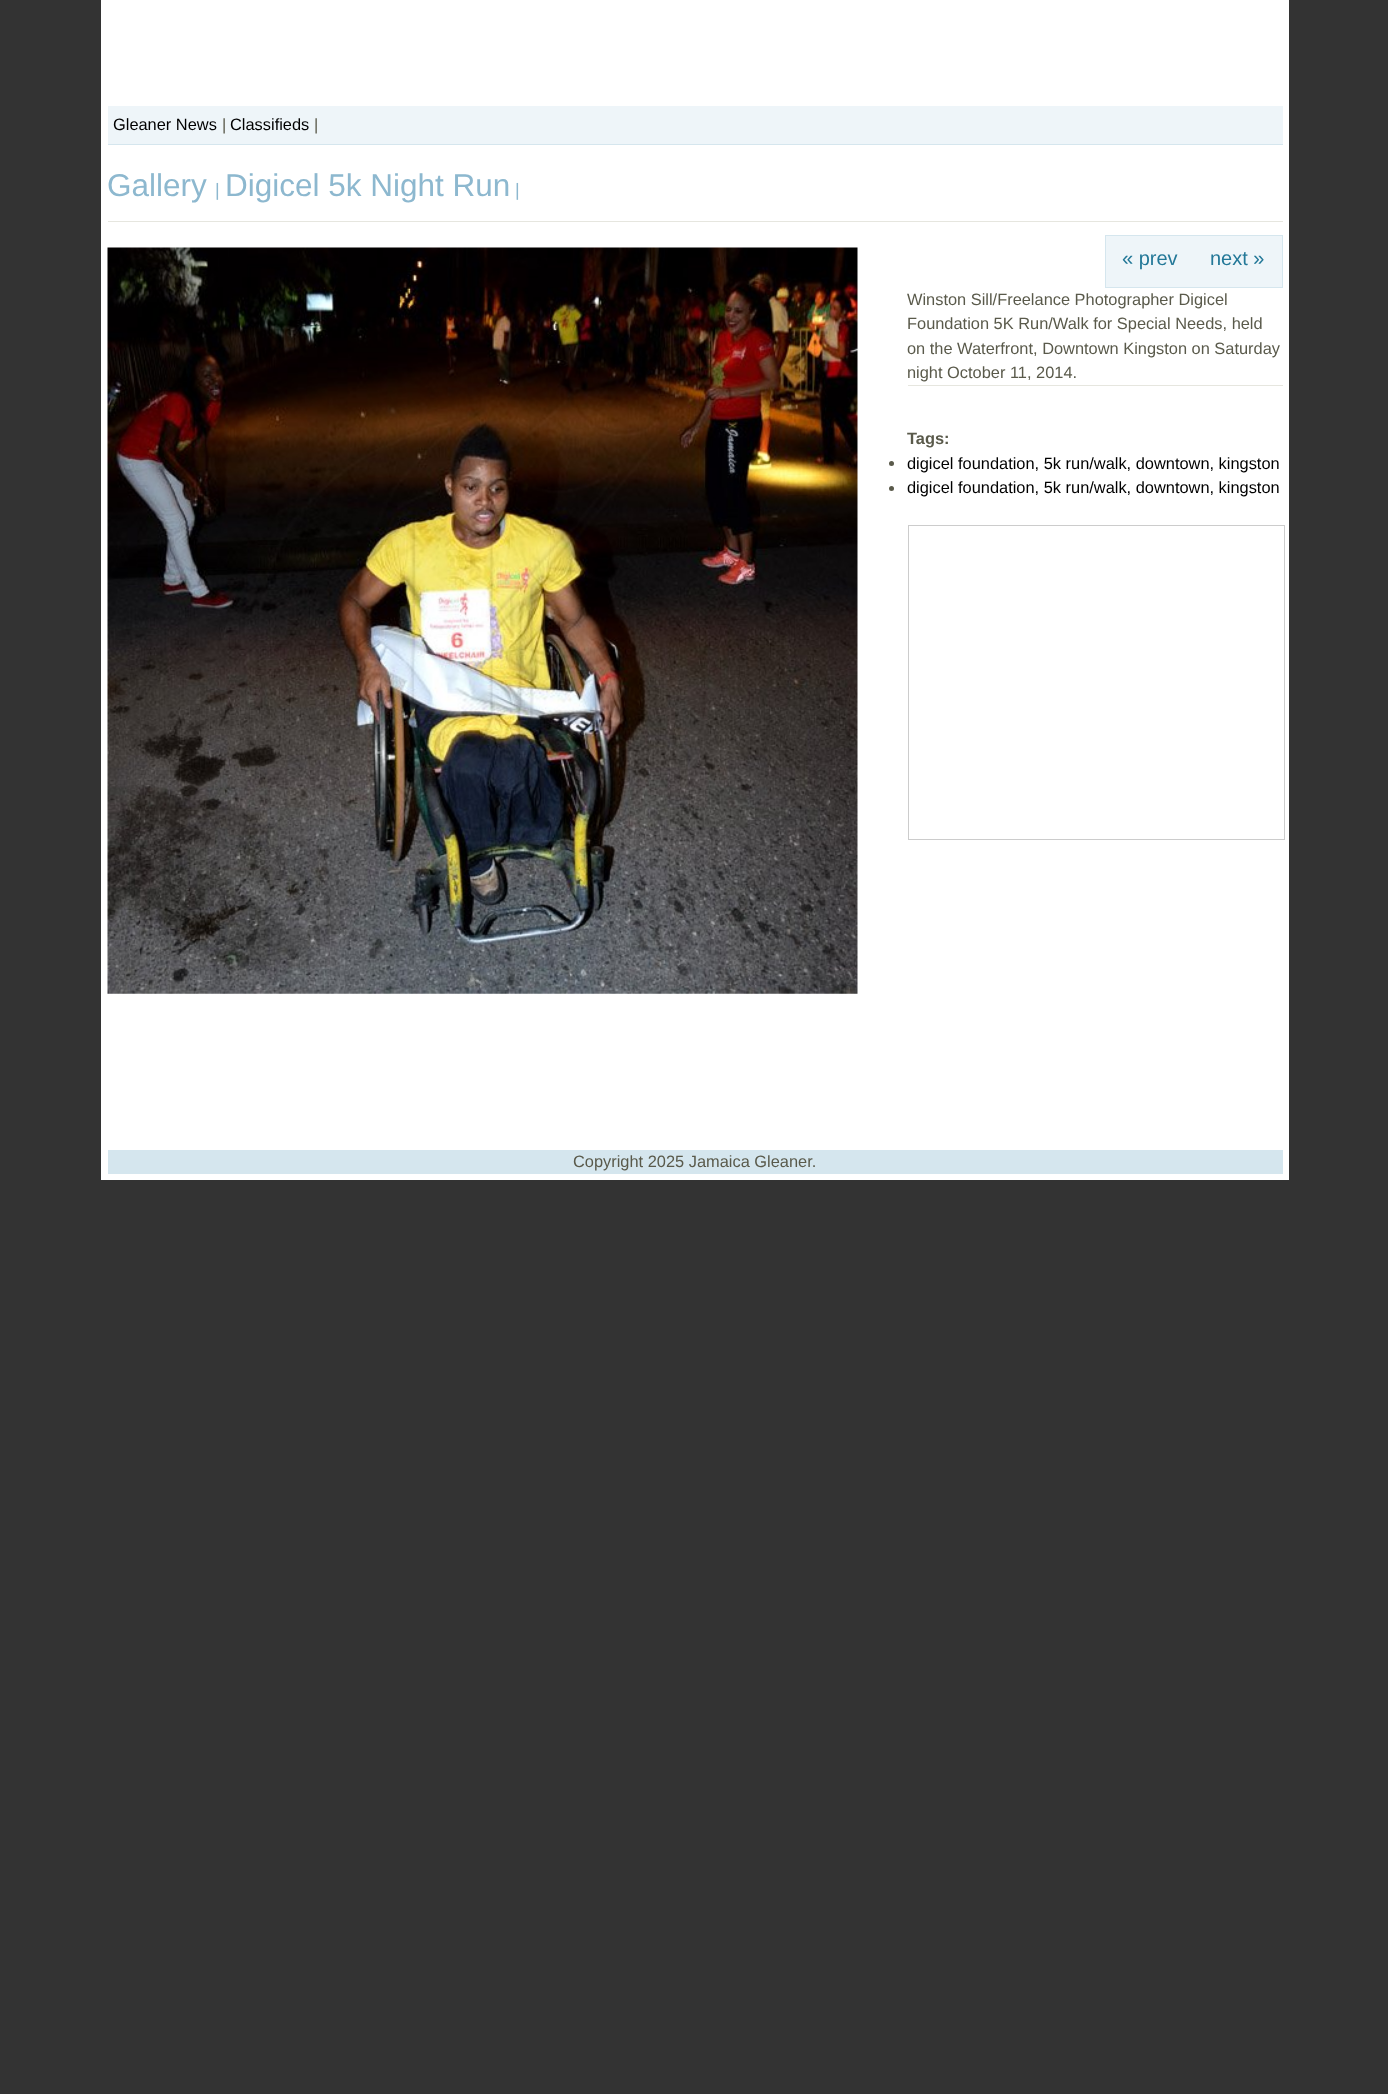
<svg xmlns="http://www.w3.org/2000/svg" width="1388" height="2094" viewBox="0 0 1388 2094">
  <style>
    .t1 { font: 16.4px Liberation Sans; fill: #000; }
    .t2 { font: 16.4px Liberation Sans; fill: #5a5a4b; }
    .t3 { font: 31.5px Liberation Sans; fill: #8db8cf; }
    .t4 { font: 18px Liberation Sans; fill: #8db8cf; }
    .t5 { font: 20px Liberation Sans; fill: #237898; }
    .t6 { font: bold 16.4px Liberation Sans; fill: #5a5a4b; }
  </style>
  <rect width="100%" height="100%" fill="#333"/>
  <rect x="101" y="0" width="1188" height="1180" fill="#fff"/>
  <rect x="108" y="106" width="1175" height="38" fill="#eef5f9"/>
  <rect x="108" y="144" width="1175" height="1" fill="#d5e6ee"/>
  <text x="113" y="130" class="t1">Gleaner News</text>
  <text x="222" y="130" class="t2">|</text>
  <text x="230" y="130" class="t1">Classifieds</text>
  <text x="314" y="130" class="t2">|</text>
  <rect x="108" y="221" width="1175" height="1" fill="#e6e6df"/>
  <text x="107" y="196" class="t3">Gallery</text>
  <text x="215" y="196" class="t4">|</text>
  <text x="225" y="196" class="t3">Digicel 5k Night Run</text>
  <text x="515" y="196" class="t4">|</text>
  <image x="107" y="247" width="751" height="747" href="images/1.png"/>
  <rect x="1105.5" y="235.5" width="177" height="52" fill="#eef5f9" stroke="#d5e6ee"/>
  <text x="1122" y="265" class="t5">« prev</text>
  <text x="1210" y="265" class="t5">next »</text>
  <text x="907" y="305" class="t2">Winston Sill/Freelance Photographer Digicel</text>
  <text x="907" y="329" class="t2">Foundation 5K Run/Walk for Special Needs, held</text>
  <text x="907" y="354" class="t2">on the Waterfront, Downtown Kingston on Saturday</text>
  <text x="907" y="378" class="t2">night October 11, 2014.</text>
  <rect x="908" y="385" width="375" height="1" fill="#e6e6df"/>
  <text x="907" y="444" class="t6">Tags:</text>
  <circle cx="891.5" cy="463.5" r="2.5" fill="#5a5a4b"/>
  <text x="907" y="469" class="t1">digicel foundation, 5k run/walk, downtown, kingston</text>
  <circle cx="891.5" cy="488.5" r="2.5" fill="#5a5a4b"/>
  <text x="907" y="493" class="t1">digicel foundation, 5k run/walk, downtown, kingston</text>
  <rect x="908.5" y="525.5" width="376" height="314" fill="none" stroke="#ccc"/>
  <rect x="108" y="1150" width="1175" height="24" fill="#d5e6ee"/>
  <text x="573" y="1167" class="t2">Copyright 2025 Jamaica Gleaner.</text>
</svg>
